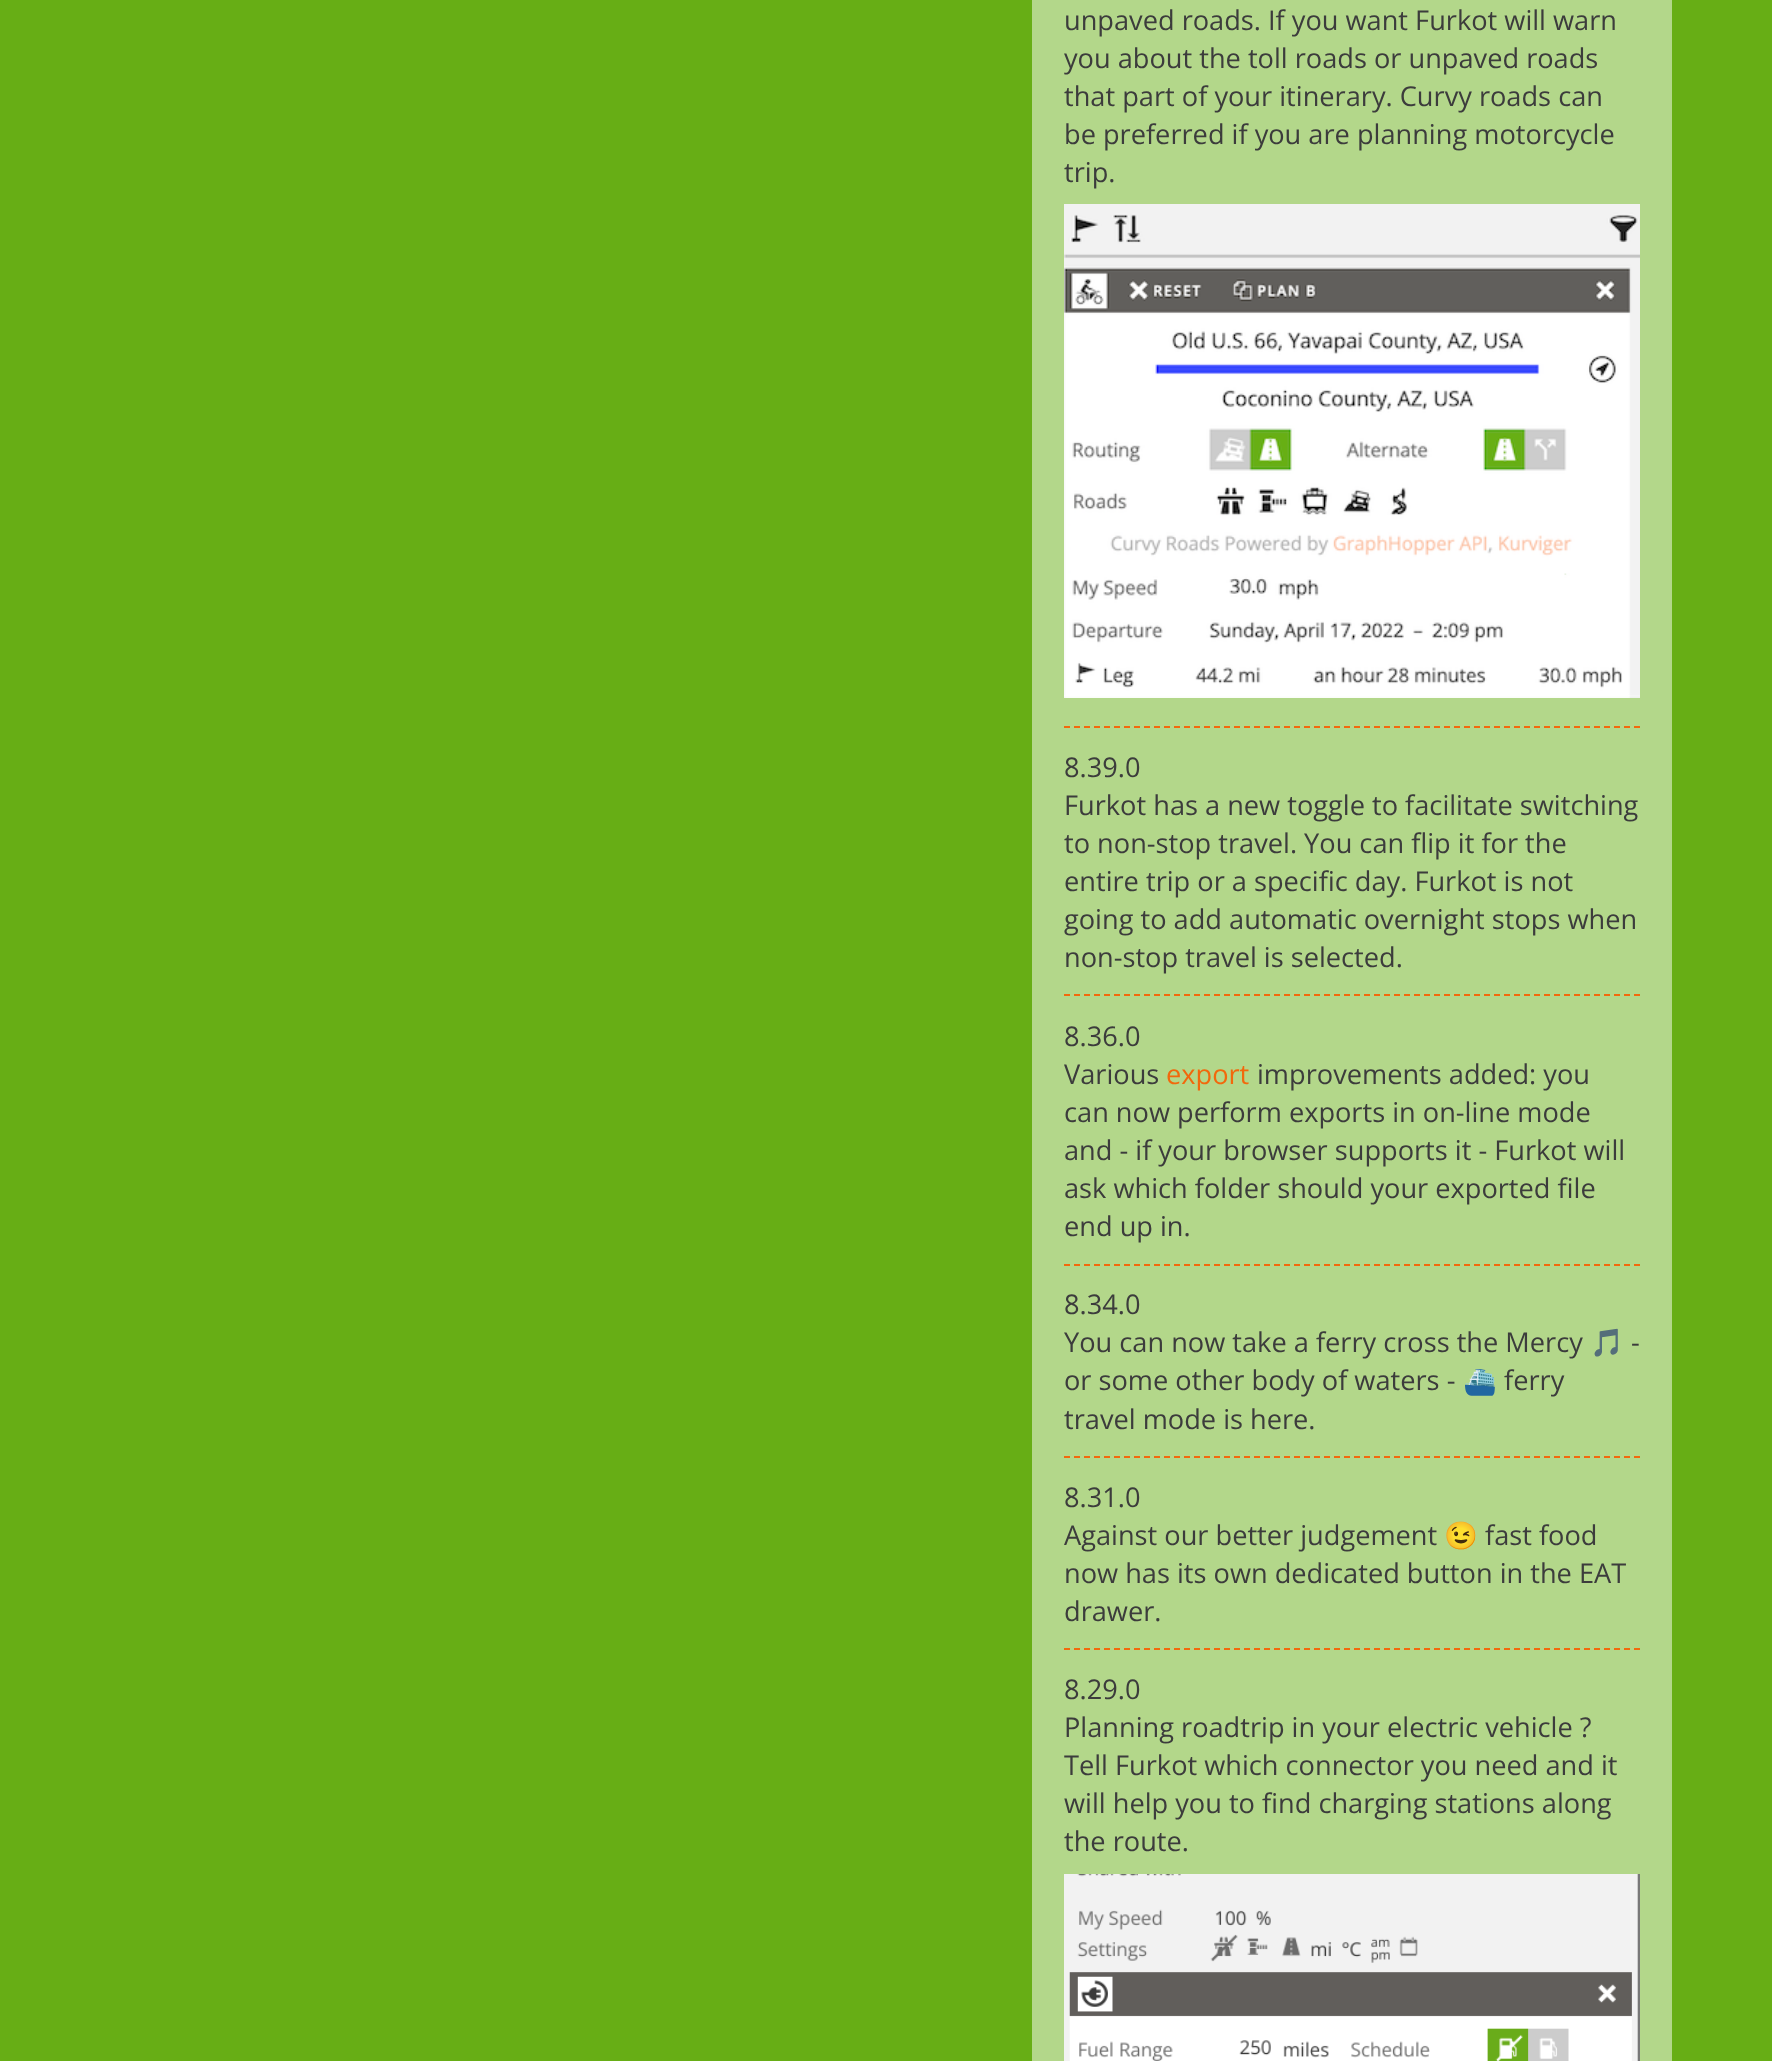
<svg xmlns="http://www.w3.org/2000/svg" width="1772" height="2061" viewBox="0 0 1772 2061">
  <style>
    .t1 { font: 27.2px Open Sans; fill: #3c3c3c; }
    .t2 { font: 27.2px Open Sans; fill: #f2680c; }
    .t3 { font: 27.2px Noto Color Emoji; fill: #3c3c3c; }
  </style>
  <rect width="100%" height="100%" fill="#67ae15"/>
  <rect x="1032" y="0" width="640" height="2061" fill="#b3d78a"/>
  <path d="M1064 727H1640" fill="none" stroke="#f2680c" stroke-width="2" stroke-dasharray="6 4"/>
  <text x="1064" y="30" class="t1">unpaved roads. If you want Furkot will warn</text>
  <text x="1064" y="68" class="t1">you about the toll roads or unpaved roads</text>
  <text x="1064" y="106" class="t1">that part of your itinerary. Curvy roads can</text>
  <text x="1064" y="144" class="t1">be preferred if you are planning motorcycle</text>
  <text x="1064" y="182" class="t1">trip.</text>
  <image x="1064" y="204" width="576" height="494" href="images/1.png"/>
  <path d="M1064 995H1640" fill="none" stroke="#f2680c" stroke-width="2" stroke-dasharray="6 4"/>
  <text x="1064" y="777" class="t1">8.39.0</text>
  <text x="1064" y="815" class="t1">Furkot has a new toggle to facilitate switching</text>
  <text x="1064" y="853" class="t1">to non-stop travel. You can flip it for the</text>
  <text x="1064" y="891" class="t1">entire trip or a specific day. Furkot is not</text>
  <text x="1064" y="929" class="t1">going to add automatic overnight stops when</text>
  <text x="1064" y="967" class="t1">non-stop travel is selected.</text>
  <path d="M1064 1265H1640" fill="none" stroke="#f2680c" stroke-width="2" stroke-dasharray="6 4"/>
  <text x="1064" y="1046" class="t1">8.36.0</text>
  <text x="1064" y="1084" class="t1">Various</text>
  <text x="1166" y="1084" class="t2">export</text>
  <text x="1257" y="1084" class="t1">improvements added: you</text>
  <text x="1064" y="1122" class="t1">can now perform exports in on-line mode</text>
  <text x="1064" y="1160" class="t1">and - if your browser supports it - Furkot will</text>
  <text x="1064" y="1198" class="t1">ask which folder should your exported file</text>
  <text x="1064" y="1236" class="t1">end up in.</text>
  <path d="M1064 1457H1640" fill="none" stroke="#f2680c" stroke-width="2" stroke-dasharray="6 4"/>
  <text x="1064" y="1314" class="t1">8.34.0</text>
  <text x="1064" y="1352" class="t1">You can now take a ferry cross the Mercy</text>
  <text x="1590" y="1352" class="t3">🎵</text>
  <text x="1631" y="1352" class="t1">-</text>
  <text x="1064" y="1390" class="t1">or some other body of waters -</text>
  <text x="1463" y="1390" class="t3">⛴️</text>
  <text x="1504" y="1390" class="t1">ferry</text>
  <text x="1064" y="1429" class="t1">travel mode is here.</text>
  <path d="M1064 1649H1640" fill="none" stroke="#f2680c" stroke-width="2" stroke-dasharray="6 4"/>
  <text x="1064" y="1507" class="t1">8.31.0</text>
  <text x="1064" y="1545" class="t1">Against our better judgement</text>
  <text x="1444" y="1545" class="t3">😉</text>
  <text x="1485" y="1545" class="t1">fast food</text>
  <text x="1064" y="1583" class="t1">now has its own dedicated button in the EAT</text>
  <text x="1064" y="1621" class="t1">drawer.</text>
  <text x="1064" y="1699" class="t1">8.29.0</text>
  <text x="1064" y="1737" class="t1">Planning roadtrip in your electric vehicle ?</text>
  <text x="1064" y="1775" class="t1">Tell Furkot which connector you need and it</text>
  <text x="1064" y="1813" class="t1">will help you to find charging stations along</text>
  <text x="1064" y="1851" class="t1">the route.</text>
  <image x="1064" y="1874" width="576" height="187" href="images/2.png"/>
</svg>
